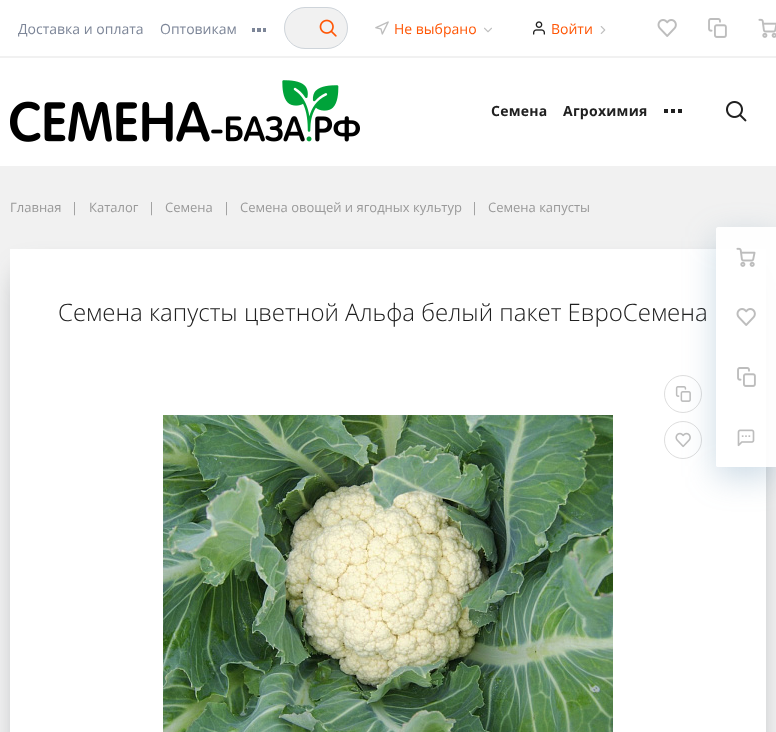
<svg xmlns="http://www.w3.org/2000/svg" width="776" height="732" viewBox="0 0 776 732">
  <style>
    .t1 { font: 14px Open Sans; fill: #7d8698; }
    .t2 { font: 14px Open Sans; fill: #ff5605; }
    .t3 { font: bold 14px Open Sans; letter-spacing: 0.25px; fill: #202020; }
    .t4 { font: 13px Open Sans; fill: #999; }
    .t5 { font: 300 24px Open Sans; fill: #202020; }
  </style>
  <defs>
    <clipPath id="clip1"><path d="M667 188H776V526H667ZM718 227H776V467H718C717 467 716 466 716 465V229C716 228 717 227 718 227Z" clip-rule="evenodd"/></clipPath>
  </defs>
  <rect width="100%" height="100%" fill="#f1f1f1"/>
  <rect x="0" y="0" width="776" height="56" fill="#fff"/>
  <text x="18" y="34" class="t1">Доставка и оплата</text>
  <text x="160" y="34" class="t1">Оптовикам</text>
  <rect x="252" y="28" width="3" height="4" fill="#7d8698"/>
  <rect x="257" y="28" width="4" height="4" fill="#7d8698"/>
  <rect x="263" y="28" width="3" height="4" fill="#7d8698"/>
  <rect x="284.5" y="7.5" width="63" height="41" rx="20.5" fill="#f1f1f1" stroke="#ced4da"/>
  <image x="319" y="19" width="18" height="18" href="images/1.png"/>
  <image x="375" y="21" width="14" height="14" href="images/2.png"/>
  <text x="394" y="34" class="t2">Не выбрано</text>
  <image x="484" y="27" width="8" height="6" href="images/3.png"/>
  <image x="533" y="21" width="12" height="14" href="images/4.png"/>
  <text x="551" y="34" class="t2">Войти</text>
  <image x="600" y="26" width="6" height="8" href="images/5.png"/>
  <image x="657" y="19" width="20" height="18" href="images/6.png"/>
  <image x="708" y="18" width="19" height="20" href="images/7.png"/>
  <image x="758" y="18" width="18" height="20" href="images/8.png"/>
  <rect x="0" y="58" width="776" height="108" fill="#fff"/>
  <image x="10" y="80" width="350" height="62" href="images/9.png"/>
  <text x="491" y="116" class="t3">Семена</text>
  <text x="563" y="116" class="t3">Агрохимия</text>
  <rect x="664" y="109" width="4" height="4" fill="#202020"/>
  <rect x="671" y="109" width="4" height="4" fill="#202020"/>
  <rect x="678" y="109" width="4" height="4" fill="#202020"/>
  <image x="726" y="101" width="21" height="21" href="images/10.png"/>
  <text x="10" y="212" class="t4">Главная</text>
  <text x="71" y="212" class="t4">|</text>
  <text x="89" y="212" class="t4">Каталог</text>
  <text x="148" y="212" class="t4">|</text>
  <text x="165" y="212" class="t4">Семена</text>
  <text x="223" y="212" class="t4">|</text>
  <text x="240" y="212" class="t4">Семена овощей и ягодных культур</text>
  <text x="471" y="212" class="t4">|</text>
  <text x="488" y="212" class="t4">Семена капусты</text>
  <rect x="25" y="276" width="726" height="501" fill="#3d4851bf" filter="blur(15px)"/>
  <rect x="10" y="249" width="756" height="483" fill="#fff"/>
  <text x="58" y="321" class="t5">Семена капусты цветной Альфа белый пакет ЕвроСемена</text>
  <image x="163" y="415" width="450" height="317" href="images/11.png"/>
  <circle cx="683" cy="394" r="18.5" fill="none" stroke="#dedede"/>
  <image x="675" y="386" width="16" height="16" href="images/12.png"/>
  <circle cx="683" cy="440" r="18.5" fill="none" stroke="#dedede"/>
  <image x="675" y="432" width="16" height="16" href="images/13.png"/>
  <g clip-path="url(#clip1)">
    <rect x="716" y="237" width="60" height="240" rx="2" fill="#5485a94d" filter="blur(16px)"/>
  </g>
  <path d="M718 227H776V467H718C717 467 716 466 716 465V229C716 228 717 227 718 227Z" fill="#ffffffe6"/>
  <image x="736" y="247" width="20" height="20" href="images/14.png"/>
  <image x="736" y="308" width="20" height="18" href="images/6.png"/>
  <image x="737" y="367" width="19" height="20" href="images/7.png"/>
  <image x="737" y="429" width="18" height="18" href="images/15.png"/>
</svg>
